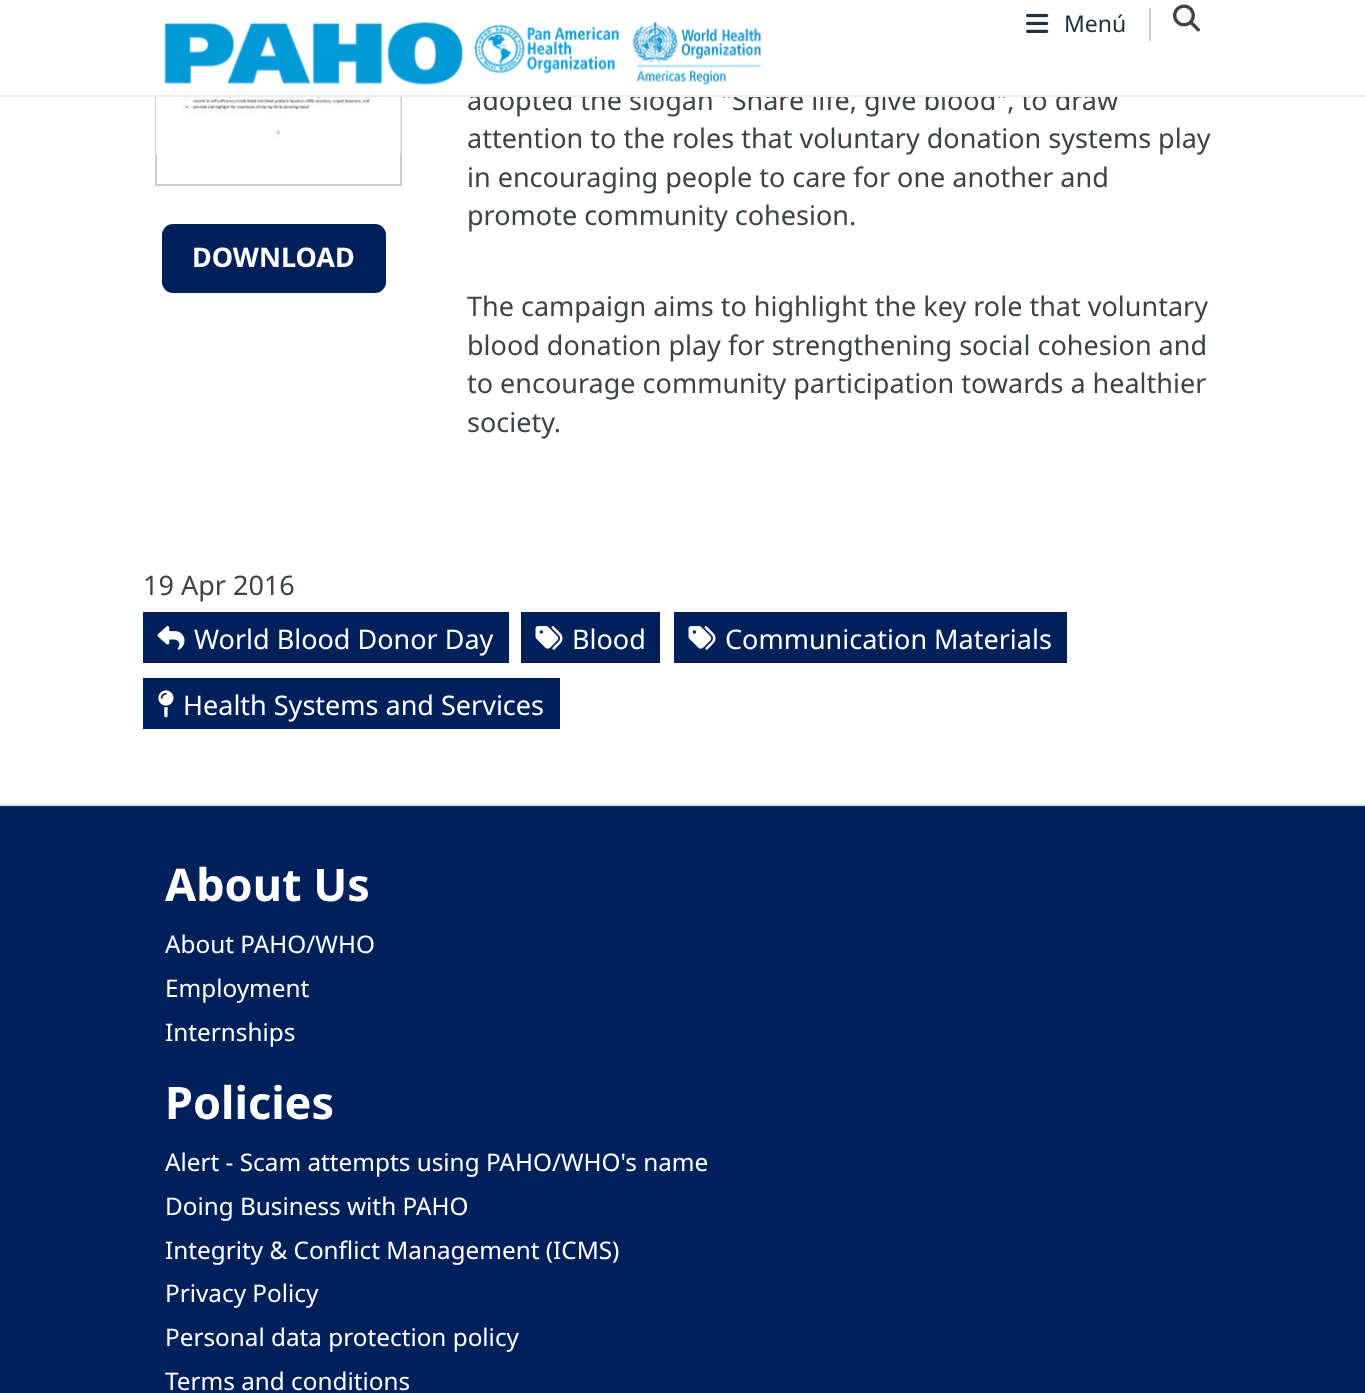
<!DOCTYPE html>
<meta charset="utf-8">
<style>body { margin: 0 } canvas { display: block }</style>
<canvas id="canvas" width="1365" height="1393"></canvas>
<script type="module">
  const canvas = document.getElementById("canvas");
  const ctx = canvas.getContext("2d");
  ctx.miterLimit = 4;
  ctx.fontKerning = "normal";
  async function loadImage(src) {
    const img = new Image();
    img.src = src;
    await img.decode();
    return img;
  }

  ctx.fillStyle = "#ffffff";
  ctx.fillRect(0, 0, 1365, 1393);
  ctx.strokeStyle = "#cccccc";
  ctx.lineWidth = 2;
  ctx.strokeRect(156, -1, 245, 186);
  ctx.font = "27px Noto Sans";
  ctx.fillStyle = "#3c4245";
  ctx.fillText("adopted the slogan \"Share life, give blood\", to draw", 467, 110);
  ctx.fillStyle = "#ffffff";
  ctx.fillRect(155, 0, 914, 95);
  ctx.fillStyle = "#eeeeee";
  ctx.fillRect(0, 95, 1365, 2);
  ctx.drawImage(await loadImage("img1.png"), 164, 21, 597, 64);
  ctx.fillStyle = "#cccccc";
  ctx.fillRect(1149, 8, 2, 33);
  ctx.drawImage(await loadImage("img2.png"), 1026, 13, 23, 20);
  ctx.font = "23px Noto Sans";
  ctx.fillStyle = "#20313b";
  ctx.fillText("Menú", 1064, 32);
  ctx.drawImage(await loadImage("img3.png"), 1173, 4, 27, 28);
  ctx.drawImage(await loadImage("img4.png"), 156, 97, 245, 58);
  ctx.fillStyle = "#00205c";
  ctx.beginPath();
  ctx.roundRect(162, 224, 224, 69, 11);
  ctx.fill();
  ctx.font = "bold 27px Noto Sans";
  ctx.fillStyle = "#ffffff";
  ctx.fillText("DOWNLOAD", 192, 267);
  ctx.font = "27px Noto Sans";
  ctx.fillStyle = "#3c4245";
  ctx.fillText("attention to the roles that voluntary donation systems play", 467, 148);
  ctx.fillText("in encouraging people to care for one another and", 467, 187);
  ctx.fillText("promote community cohesion.", 467, 225);
  ctx.fillText("The campaign aims to highlight the key role that voluntary", 467, 316);
  ctx.fillText("blood donation play for strengthening social cohesion and", 467, 355);
  ctx.fillText("to encourage community participation towards a healthier", 467, 393);
  ctx.fillText("society.", 467, 432);
  ctx.fillText("19 Apr 2016", 143, 595);
  ctx.fillStyle = "#00205c";
  ctx.fillRect(143, 612, 366, 51);
  ctx.drawImage(await loadImage("img5.png"), 157, 626, 28, 24);
  ctx.fillStyle = "#ffffff";
  ctx.fillText("World Blood Donor Day", 194, 649);
  ctx.fillStyle = "#00205c";
  ctx.fillRect(521, 612, 139, 51);
  ctx.drawImage(await loadImage("img6.png"), 535, 626, 28, 24);
  ctx.fillStyle = "#ffffff";
  ctx.fillText("Blood", 572, 649);
  ctx.fillStyle = "#00205c";
  ctx.fillRect(674, 612, 393, 51);
  ctx.drawImage(await loadImage("img6.png"), 688, 626, 28, 24);
  ctx.fillStyle = "#ffffff";
  ctx.fillText("Communication Materials", 725, 649);
  ctx.fillStyle = "#00205c";
  ctx.fillRect(143, 678, 417, 51);
  ctx.drawImage(await loadImage("img7.png"), 158, 690, 16, 28);
  ctx.fillStyle = "#ffffff";
  ctx.fillText("Health Systems and Services", 183, 715);
  ctx.fillStyle = "#00205c";
  ctx.fillRect(0, 806, 1365, 587);
  ctx.fillStyle = "#e5e5e5";
  ctx.fillRect(0, 804, 1365, 2);
  ctx.font = "bold 45px Noto Sans";
  ctx.fillStyle = "#ffffff";
  ctx.fillText("About Us", 165, 901);
  ctx.font = "24.3px Noto Sans";
  ctx.fillText("About PAHO/WHO", 165, 953);
  ctx.fillText("Employment", 165, 997);
  ctx.fillText("Internships", 165, 1041);
  ctx.font = "bold 45px Noto Sans";
  ctx.fillText("Policies", 165, 1119);
  ctx.font = "24.3px Noto Sans";
  ctx.fillText("Alert - Scam attempts using PAHO/WHO's name", 165, 1171);
  ctx.fillText("Doing Business with PAHO", 165, 1215);
  ctx.fillText("Integrity & Conflict Management (ICMS)", 165, 1259);
  ctx.fillText("Privacy Policy", 165, 1302);
  ctx.fillText("Personal data protection policy", 165, 1346);
  ctx.fillText("Terms and conditions", 165, 1390);
</script>
